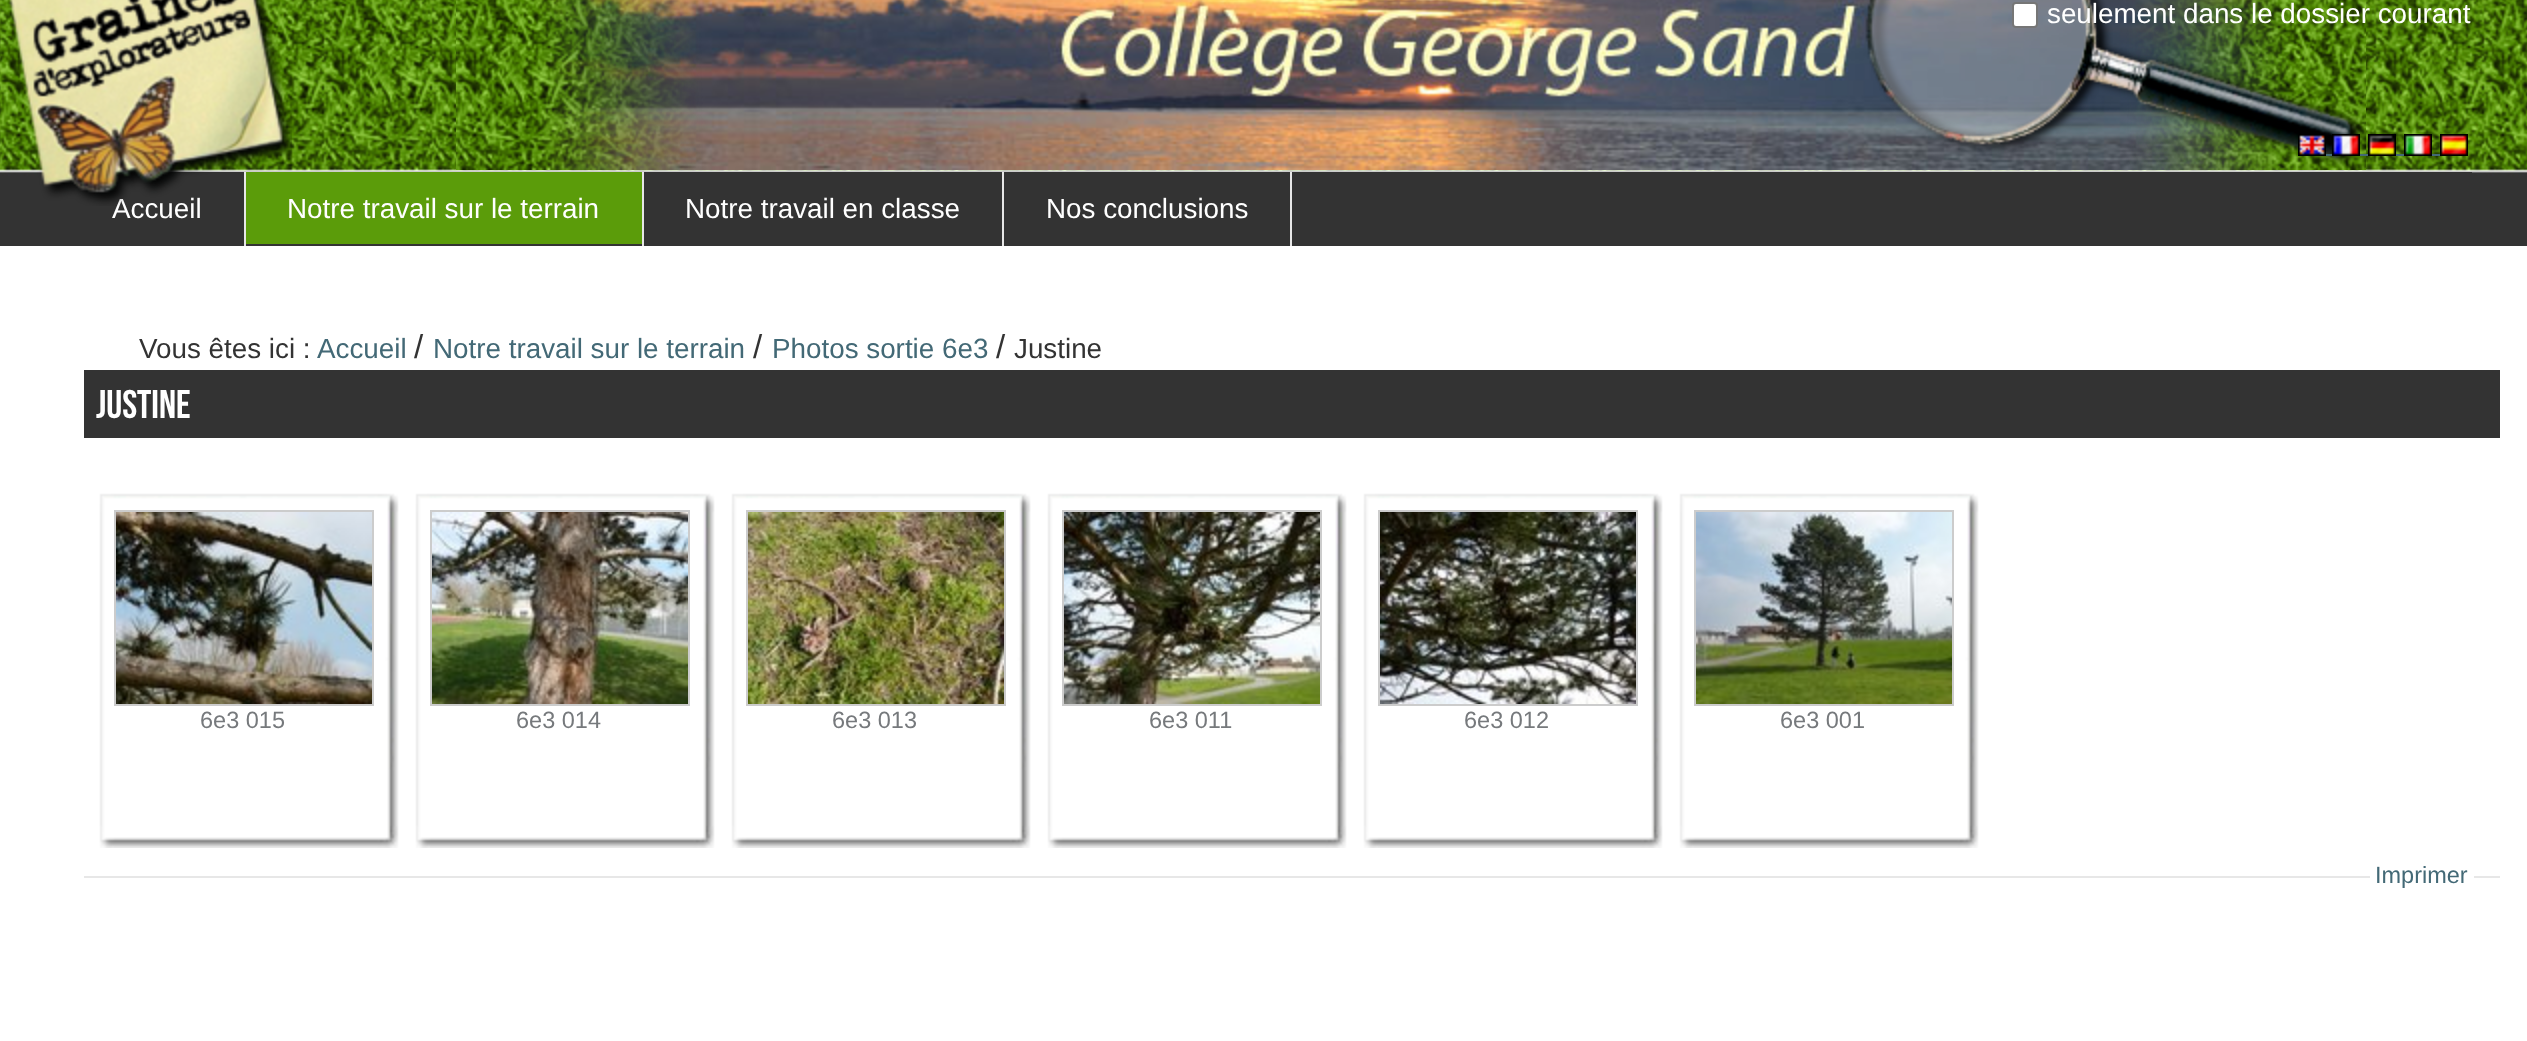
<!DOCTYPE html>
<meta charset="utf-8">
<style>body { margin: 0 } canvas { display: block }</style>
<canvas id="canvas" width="2527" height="1041"></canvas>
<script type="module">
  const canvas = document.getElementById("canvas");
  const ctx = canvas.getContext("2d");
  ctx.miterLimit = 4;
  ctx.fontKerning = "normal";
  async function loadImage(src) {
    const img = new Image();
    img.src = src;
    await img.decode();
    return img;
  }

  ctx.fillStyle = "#ffffff";
  ctx.fillRect(0, 0, 2527, 1041);
  ctx.drawImage(await loadImage("img1.png"), 0, 0, 2527, 246);
  ctx.fillStyle = "#333333";
  ctx.fillRect(56, 172, 2416, 4);
  ctx.fillStyle = "#e7e7e7";
  ctx.fillRect(244, 172, 2, 74);
  ctx.font = "27.8px Liberation Sans";
  ctx.fillStyle = "#ffffff";
  ctx.fillText("Accueil", 112, 218);
  ctx.fillStyle = "#5b9c0a";
  ctx.fillRect(246, 172, 396, 72);
  ctx.fillStyle = "#ffffff";
  ctx.fillText("Notre travail sur le terrain", 287, 218);
  ctx.drawImage(await loadImage("img2.png"), 7, 0, 285, 206);
  ctx.drawImage(await loadImage("img4.png"), 535, 0, 1759, 170);
  ctx.drawImage(await loadImage("img3.png"), 456, 0, 1910, 170);
  ctx.beginPath();
  ctx.roundRect(2013, 3, 24, 24, 3);
  ctx.fill();
  ctx.strokeStyle = "#767676";
  ctx.lineWidth = 2;
  ctx.stroke();
  ctx.fillText("seulement dans le dossier courant", 2047, 23);
  ctx.drawImage(await loadImage("img5.png"), 2298, 135, 28, 21);
  ctx.fillStyle = "#436976";
  ctx.fillRect(2326, 154, 6, 2);
  ctx.drawImage(await loadImage("img6.png"), 2332, 134, 28, 22);
  ctx.fillRect(2360, 154, 8, 2);
  ctx.drawImage(await loadImage("img7.png"), 2368, 134, 28, 22);
  ctx.fillRect(2396, 154, 8, 2);
  ctx.drawImage(await loadImage("img8.png"), 2404, 134, 28, 22);
  ctx.fillRect(2432, 154, 8, 2);
  ctx.drawImage(await loadImage("img9.png"), 2440, 134, 28, 22);
  ctx.fillStyle = "#e7e7e7";
  ctx.fillRect(642, 172, 2, 74);
  ctx.fillRect(1002, 172, 2, 74);
  ctx.fillStyle = "#ffffff";
  ctx.fillText("Notre travail en classe", 685, 218);
  ctx.fillStyle = "#e7e7e7";
  ctx.fillRect(1290, 172, 2, 74);
  ctx.fillStyle = "#ffffff";
  ctx.fillText("Nos conclusions", 1046, 218);
  ctx.fillStyle = "#333333";
  ctx.fillText("Vous êtes ici :", 139, 358);
  ctx.fillStyle = "#436976";
  ctx.fillText("Accueil", 317, 358);
  ctx.font = "33px Liberation Sans";
  ctx.fillStyle = "#333333";
  ctx.fillText("/", 414, 358);
  ctx.font = "27.8px Liberation Sans";
  ctx.fillStyle = "#436976";
  ctx.fillText("Notre travail sur le terrain", 433, 358);
  ctx.font = "33px Liberation Sans";
  ctx.fillStyle = "#333333";
  ctx.fillText("/", 753, 358);
  ctx.font = "27.8px Liberation Sans";
  ctx.fillStyle = "#436976";
  ctx.fillText("Photos sortie 6e3", 772, 358);
  ctx.font = "33px Liberation Sans";
  ctx.fillStyle = "#333333";
  ctx.fillText("/", 996, 358);
  ctx.font = "27.8px Liberation Sans";
  ctx.fillText("Justine", 1014, 358);
  ctx.fillRect(84, 370, 2416, 68);
  ctx.font = "40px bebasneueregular";
  ctx.fillStyle = "#ffffff";
  ctx.fillText("Justine", 96, 418);
  ctx.drawImage(await loadImage("img10.png"), 99, 493, 300, 355);
  ctx.strokeStyle = "#cccccc";
  ctx.strokeRect(115, 511, 258, 194);
  ctx.drawImage(await loadImage("img11.png"), 116, 512, 256, 192);
  ctx.font = "23.5px Liberation Sans";
  ctx.fillStyle = "#76797c";
  ctx.fillText("6e3 015", 200, 728);
  ctx.drawImage(await loadImage("img10.png"), 415, 493, 300, 355);
  ctx.strokeRect(431, 511, 258, 194);
  ctx.drawImage(await loadImage("img12.png"), 432, 512, 256, 192);
  ctx.fillText("6e3 014", 516, 728);
  ctx.drawImage(await loadImage("img10.png"), 731, 493, 300, 355);
  ctx.strokeRect(747, 511, 258, 194);
  ctx.drawImage(await loadImage("img13.png"), 748, 512, 256, 192);
  ctx.fillText("6e3 013", 832, 728);
  ctx.drawImage(await loadImage("img10.png"), 1047, 493, 300, 355);
  ctx.strokeRect(1063, 511, 258, 194);
  ctx.drawImage(await loadImage("img14.png"), 1064, 512, 256, 192);
  ctx.fillText("6e3 011", 1149, 728);
  ctx.drawImage(await loadImage("img10.png"), 1363, 493, 300, 355);
  ctx.strokeRect(1379, 511, 258, 194);
  ctx.drawImage(await loadImage("img15.png"), 1380, 512, 256, 192);
  ctx.fillText("6e3 012", 1464, 728);
  ctx.drawImage(await loadImage("img10.png"), 1679, 493, 300, 355);
  ctx.strokeRect(1695, 511, 258, 194);
  ctx.drawImage(await loadImage("img16.png"), 1696, 512, 256, 192);
  ctx.fillText("6e3 001", 1780, 728);
  ctx.fillStyle = "#e7e7e7";
  ctx.fillRect(84, 876, 2416, 2);
  ctx.fillStyle = "#ffffff";
  ctx.fillRect(2370, 876, 104, 2);
  ctx.fillStyle = "#436976";
  ctx.fillText("Imprimer", 2375, 883);
</script>
